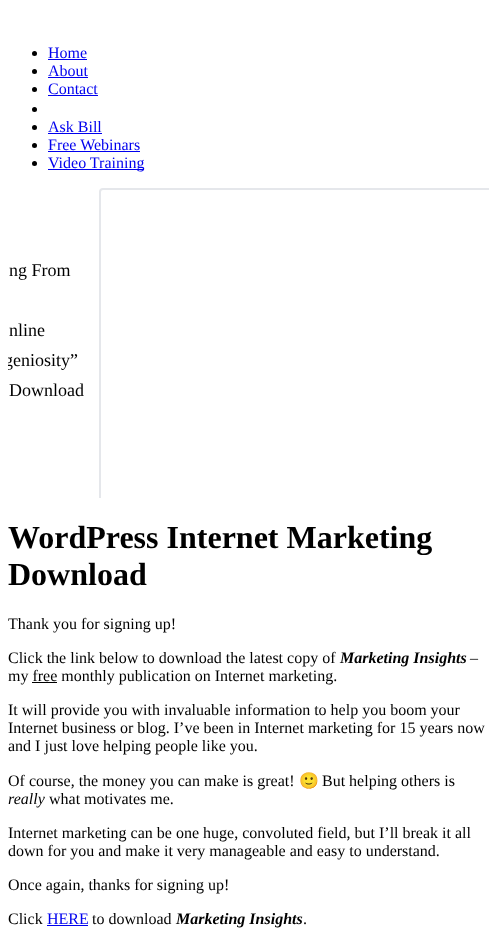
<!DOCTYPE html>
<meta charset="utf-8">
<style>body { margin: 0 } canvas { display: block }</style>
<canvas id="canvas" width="497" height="938"></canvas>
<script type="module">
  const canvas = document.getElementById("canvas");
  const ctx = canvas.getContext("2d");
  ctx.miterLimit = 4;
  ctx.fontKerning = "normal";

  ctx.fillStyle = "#ffffff";
  ctx.fillRect(0, 0, 497, 938);
  ctx.fillStyle = "#000000";
  ctx.beginPath();
  ctx.arc(34.5, 53.5, 2.5, 0, Math.PI * 2);
  ctx.fill();
  ctx.font = "16px Liberation Serif";
  ctx.fillStyle = "#0000ee";
  ctx.fillText("Home", 48, 58);
  ctx.fillRect(48, 59, 39, 1);
  ctx.fillStyle = "#000000";
  ctx.beginPath();
  ctx.arc(34.5, 71.5, 2.5, 0, Math.PI * 2);
  ctx.fill();
  ctx.fillStyle = "#0000ee";
  ctx.fillText("About", 48, 76);
  ctx.fillRect(48, 77, 40, 1);
  ctx.fillStyle = "#000000";
  ctx.beginPath();
  ctx.arc(34.5, 89.5, 2.5, 0, Math.PI * 2);
  ctx.fill();
  ctx.fillStyle = "#0000ee";
  ctx.fillText("Contact", 48, 94);
  ctx.fillRect(48, 95, 50, 1);
  ctx.fillStyle = "#000000";
  ctx.beginPath();
  ctx.arc(34.5, 109.5, 2.5, 0, Math.PI * 2);
  ctx.fill();
  ctx.beginPath();
  ctx.arc(34.5, 127.5, 2.5, 0, Math.PI * 2);
  ctx.fill();
  ctx.fillStyle = "#0000ee";
  ctx.fillText("Ask Bill", 48, 132);
  ctx.fillRect(48, 133, 54, 1);
  ctx.fillStyle = "#000000";
  ctx.beginPath();
  ctx.arc(34.5, 145.5, 2.5, 0, Math.PI * 2);
  ctx.fill();
  ctx.fillStyle = "#0000ee";
  ctx.fillText("Free Webinars", 48, 150);
  ctx.fillRect(48, 151, 92, 1);
  ctx.fillStyle = "#000000";
  ctx.beginPath();
  ctx.arc(34.5, 163.5, 2.5, 0, Math.PI * 2);
  ctx.fill();
  ctx.fillStyle = "#0000ee";
  ctx.fillRect(48, 169, 96, 1);
  ctx.fillText("Video Training", 48, 168);
  ctx.font = "18px Liberation Serif";
  ctx.fillStyle = "#000000";
  ctx.fillText("ng From", 9, 276);
  ctx.fillText("nline", 9, 336);
  ctx.save();
  ctx.beginPath();
  ctx.rect(8, 8, 481, 490);
  ctx.clip();
  ctx.fillText("geniosity”", 4, 366);
  ctx.restore();
  ctx.fillText("Download", 9, 396);
  ctx.save();
  ctx.beginPath();
  ctx.rect(8, 8, 481, 490);
  ctx.clip();
  ctx.beginPath();
  ctx.roundRect(100, 189, 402, 322, 3);
  ctx.strokeStyle = "#e5e7eb";
  ctx.lineWidth = 2;
  ctx.stroke();
  ctx.restore();
  ctx.font = "bold 32px Liberation Serif";
  ctx.fillText("WordPress Internet Marketing", 8, 548);
  ctx.fillText("Download", 8, 585);
  ctx.font = "16px Liberation Serif";
  ctx.fillText("Thank you for signing up!", 8, 629);
  ctx.fillText("Click the link below to download the latest copy of", 8, 663);
  ctx.font = "italic bold 16px Liberation Serif";
  ctx.fillText("Marketing Insights", 340, 663);
  ctx.font = "16px Liberation Serif";
  ctx.fillText("–", 470, 663);
  ctx.fillText("my free monthly publication on Internet marketing.", 8, 681);
  ctx.fillRect(32, 682, 25, 1);
  ctx.fillText("It will provide you with invaluable information to help you boom your", 8, 715);
  ctx.fillText("Internet business or blog. I’ve been in Internet marketing for 15 years now", 8, 733);
  ctx.fillText("and I just love helping people like you.", 8, 751);
  ctx.fillText("Of course, the money you can make is great!", 8, 786);
  ctx.font = "16px Noto Color Emoji";
  ctx.fillText("🙂", 299, 786);
  ctx.font = "16px Liberation Serif";
  ctx.fillText("But helping others is", 322, 786);
  ctx.font = "italic 16px Liberation Serif";
  ctx.fillText("really", 8, 804);
  ctx.font = "16px Liberation Serif";
  ctx.fillText("what motivates me.", 49, 804);
  ctx.fillText("Internet marketing can be one huge, convoluted field, but I’ll break it all", 8, 838);
  ctx.fillText("down for you and make it very manageable and easy to understand.", 8, 856);
  ctx.fillText("Once again, thanks for signing up!", 8, 890);
  ctx.fillText("Click", 8, 924);
  ctx.fillStyle = "#0000ee";
  ctx.fillText("HERE", 47, 924);
  ctx.fillRect(47, 925, 41, 1);
  ctx.fillStyle = "#000000";
  ctx.fillText("to download", 92, 924);
  ctx.font = "italic bold 16px Liberation Serif";
  ctx.fillText("Marketing Insights", 176, 924);
  ctx.font = "16px Liberation Serif";
  ctx.fillText(".", 303, 924);
</script>
